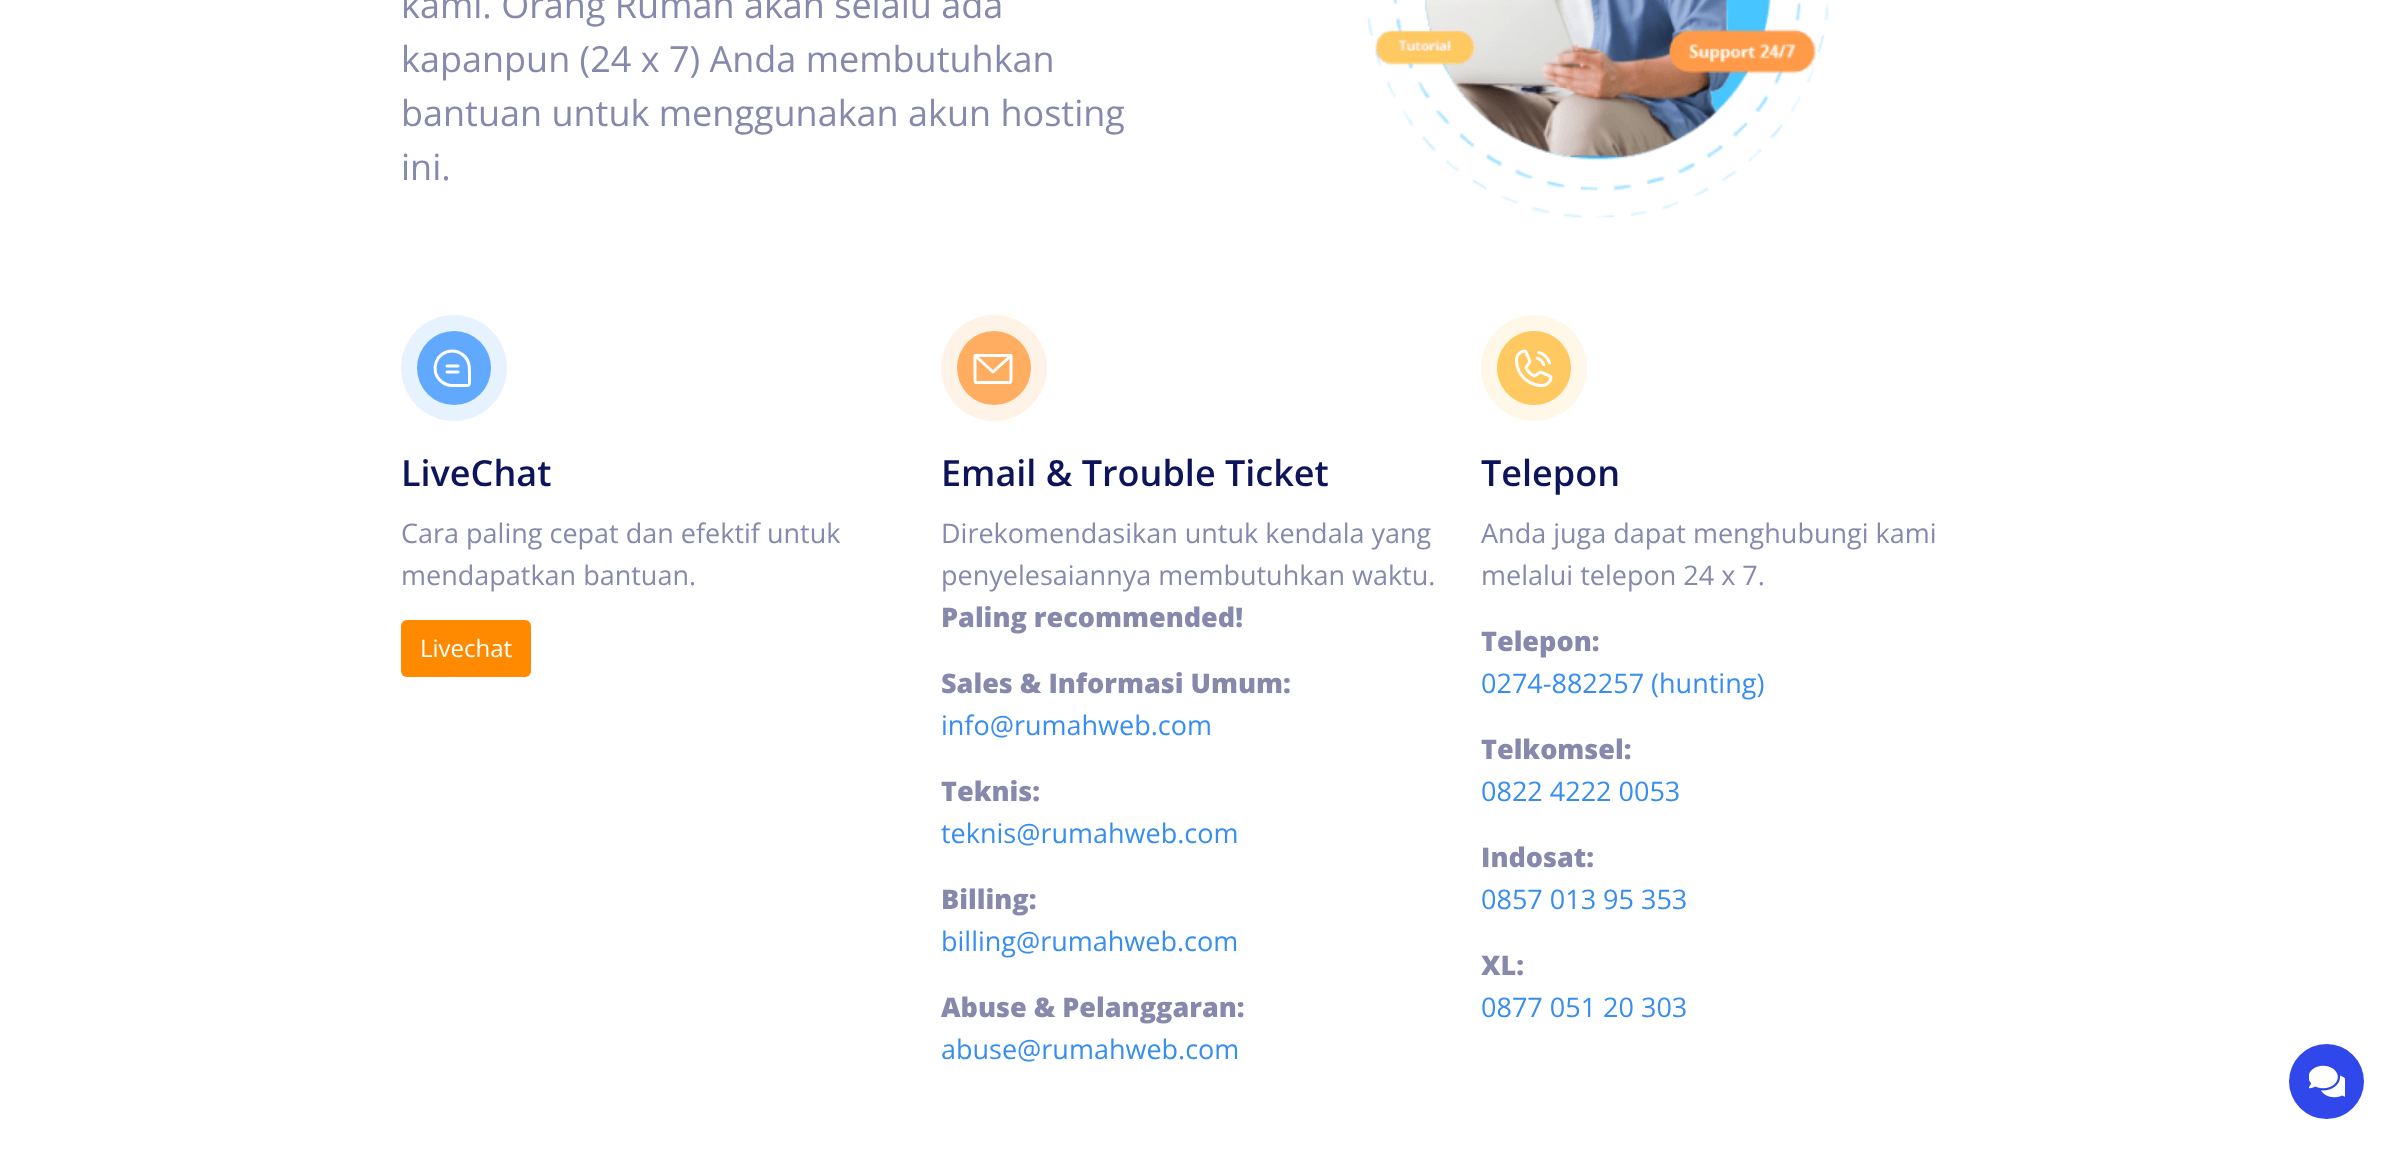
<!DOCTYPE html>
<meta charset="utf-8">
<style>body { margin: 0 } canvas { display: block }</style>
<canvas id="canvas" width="2384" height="1163"></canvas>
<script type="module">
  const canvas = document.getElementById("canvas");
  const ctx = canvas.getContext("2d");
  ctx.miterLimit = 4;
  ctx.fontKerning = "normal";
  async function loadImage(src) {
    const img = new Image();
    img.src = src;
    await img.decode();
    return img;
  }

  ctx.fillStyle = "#ffffff";
  ctx.fillRect(0, 0, 2384, 1163);
  ctx.font = "36px Open Sans";
  ctx.fillStyle = "#8689ac";
  ctx.fillText("kami. Orang Rumah akan selalu ada", 401, 18);
  ctx.fillText("kapanpun (24 x 7) Anda membutuhkan", 401, 72);
  ctx.fillText("bantuan untuk menggunakan akun hosting", 401, 126);
  ctx.fillText("ini.", 401, 180);
  ctx.drawImage(await loadImage("img1.png"), 1366, 0, 463, 218);
  ctx.fillStyle = "#61aaff";
  ctx.beginPath();
  ctx.arc(454, 368, 37, 0, Math.PI * 2);
  ctx.fill();
  ctx.fillStyle = "rgba(97, 170, 255, 0.15)";
  ctx.beginPath();
  ctx.arc(454, 368, 53, 0, Math.PI * 2);
  ctx.fill();
  ctx.beginPath();
  ctx.moveTo(452, 385.5);
  ctx.lineTo(465.5, 385.5);
  ctx.bezierCurveTo(469.5, 385.5, 469.5, 385.5, 469.5, 381.5);
  ctx.lineTo(469.5, 373.5);
  ctx.bezierCurveTo(469.5, 370.5, 469.5, 367.5, 469, 365);
  ctx.bezierCurveTo(467.5, 357, 460.5, 351, 452, 351);
  ctx.bezierCurveTo(436.5, 351, 428.5, 371, 441.5, 381.5);
  ctx.bezierCurveTo(444.5, 384, 448.5, 385.5, 452, 385.5);
  ctx.closePath();
  ctx.moveTo(458, 366);
  ctx.lineTo(447, 366);
  ctx.moveTo(458, 372);
  ctx.lineTo(447, 372);
  ctx.strokeStyle = "#ffffff";
  ctx.lineWidth = 3;
  ctx.lineCap = "round";
  ctx.lineJoin = "round";
  ctx.stroke();
  ctx.font = "600 36px Open Sans";
  ctx.fillStyle = "#0d145a";
  ctx.fillText("LiveChat", 401, 486);
  ctx.font = "27px Open Sans";
  ctx.fillStyle = "#8689ac";
  ctx.fillText("Cara paling cepat dan efektif untuk", 401, 543);
  ctx.fillText("mendapatkan bantuan.", 401, 585);
  ctx.fillStyle = "#ff8a00";
  ctx.beginPath();
  ctx.roundRect(401, 620, 130, 57, 6);
  ctx.fill();
  ctx.font = "24px Open Sans";
  ctx.fillStyle = "#ffffff";
  ctx.fillText("Livechat", 420, 657);
  ctx.fillStyle = "#fff3e7";
  ctx.beginPath();
  ctx.arc(994, 368, 53, 0, Math.PI * 2);
  ctx.fill();
  ctx.fillStyle = "#ffad61";
  ctx.beginPath();
  ctx.arc(994, 368, 37, 0, Math.PI * 2);
  ctx.fill();
  ctx.beginPath();
  ctx.moveTo(975, 355.5);
  ctx.lineTo(1011, 355.5);
  ctx.lineTo(1011, 377);
  ctx.bezierCurveTo(1011, 384, 1011.5, 382.5, 1004, 382.5);
  ctx.lineTo(982, 382.5);
  ctx.bezierCurveTo(974.5, 382.5, 975, 384, 975, 377);
  ctx.closePath();
  ctx.moveTo(1011, 355.5);
  ctx.lineTo(993, 372);
  ctx.lineTo(975, 355.5);
  ctx.stroke();
  ctx.font = "600 36px Open Sans";
  ctx.fillStyle = "#0d145a";
  ctx.fillText("Email & Trouble Ticket", 941, 486);
  ctx.font = "27px Open Sans";
  ctx.fillStyle = "#8689ac";
  ctx.fillText("Direkomendasikan untuk kendala yang", 941, 543);
  ctx.fillText("penyelesaiannya membutuhkan waktu.", 941, 585);
  ctx.font = "800 27px Open Sans";
  ctx.fillText("Paling recommended!", 941, 627);
  ctx.fillText("Sales & Informasi Umum:", 941, 693);
  ctx.font = "27px Open Sans";
  ctx.fillStyle = "#378df0";
  ctx.fillText("info@rumahweb.com", 941, 735);
  ctx.font = "800 27px Open Sans";
  ctx.fillStyle = "#8689ac";
  ctx.fillText("Teknis:", 941, 801);
  ctx.font = "27px Open Sans";
  ctx.fillStyle = "#378df0";
  ctx.fillText("teknis@rumahweb.com", 941, 843);
  ctx.font = "800 27px Open Sans";
  ctx.fillStyle = "#8689ac";
  ctx.fillText("Billing:", 941, 909);
  ctx.font = "27px Open Sans";
  ctx.fillStyle = "#378df0";
  ctx.fillText("billing@rumahweb.com", 941, 951);
  ctx.font = "800 27px Open Sans";
  ctx.fillStyle = "#8689ac";
  ctx.fillText("Abuse & Pelanggaran:", 941, 1017);
  ctx.font = "27px Open Sans";
  ctx.fillStyle = "#378df0";
  ctx.fillText("abuse@rumahweb.com", 941, 1059);
  ctx.drawImage(await loadImage("img2.png"), 1481, 315, 106, 106);
  ctx.font = "600 36px Open Sans";
  ctx.fillStyle = "#0d145a";
  ctx.fillText("Telepon", 1481, 486);
  ctx.font = "27px Open Sans";
  ctx.fillStyle = "#8689ac";
  ctx.fillText("Anda juga dapat menghubungi kami", 1481, 543);
  ctx.fillText("melalui telepon 24 x 7.", 1481, 585);
  ctx.font = "800 27px Open Sans";
  ctx.fillText("Telepon:", 1481, 651);
  ctx.font = "27px Open Sans";
  ctx.fillStyle = "#378df0";
  ctx.fillText("0274-882257 (hunting)", 1481, 693);
  ctx.font = "800 27px Open Sans";
  ctx.fillStyle = "#8689ac";
  ctx.fillText("Telkomsel:", 1481, 759);
  ctx.font = "27px Open Sans";
  ctx.fillStyle = "#378df0";
  ctx.fillText("0822 4222 0053", 1481, 801);
  ctx.font = "800 27px Open Sans";
  ctx.fillStyle = "#8689ac";
  ctx.fillText("Indosat:", 1481, 867);
  ctx.font = "27px Open Sans";
  ctx.fillStyle = "#378df0";
  ctx.fillText("0857 013 95 353", 1481, 909);
  ctx.font = "800 27px Open Sans";
  ctx.fillStyle = "#8689ac";
  ctx.fillText("XL:", 1481, 975);
  ctx.font = "27px Open Sans";
  ctx.fillStyle = "#378df0";
  ctx.fillText("0877 051 20 303", 1481, 1017);
  ctx.fillStyle = "#3047ec";
  ctx.beginPath();
  ctx.arc(2326.5, 1081.5, 37.5, 0, Math.PI * 2);
  ctx.fill();
  ctx.drawImage(await loadImage("img3.png"), 2309, 1065, 36, 33);
</script>
